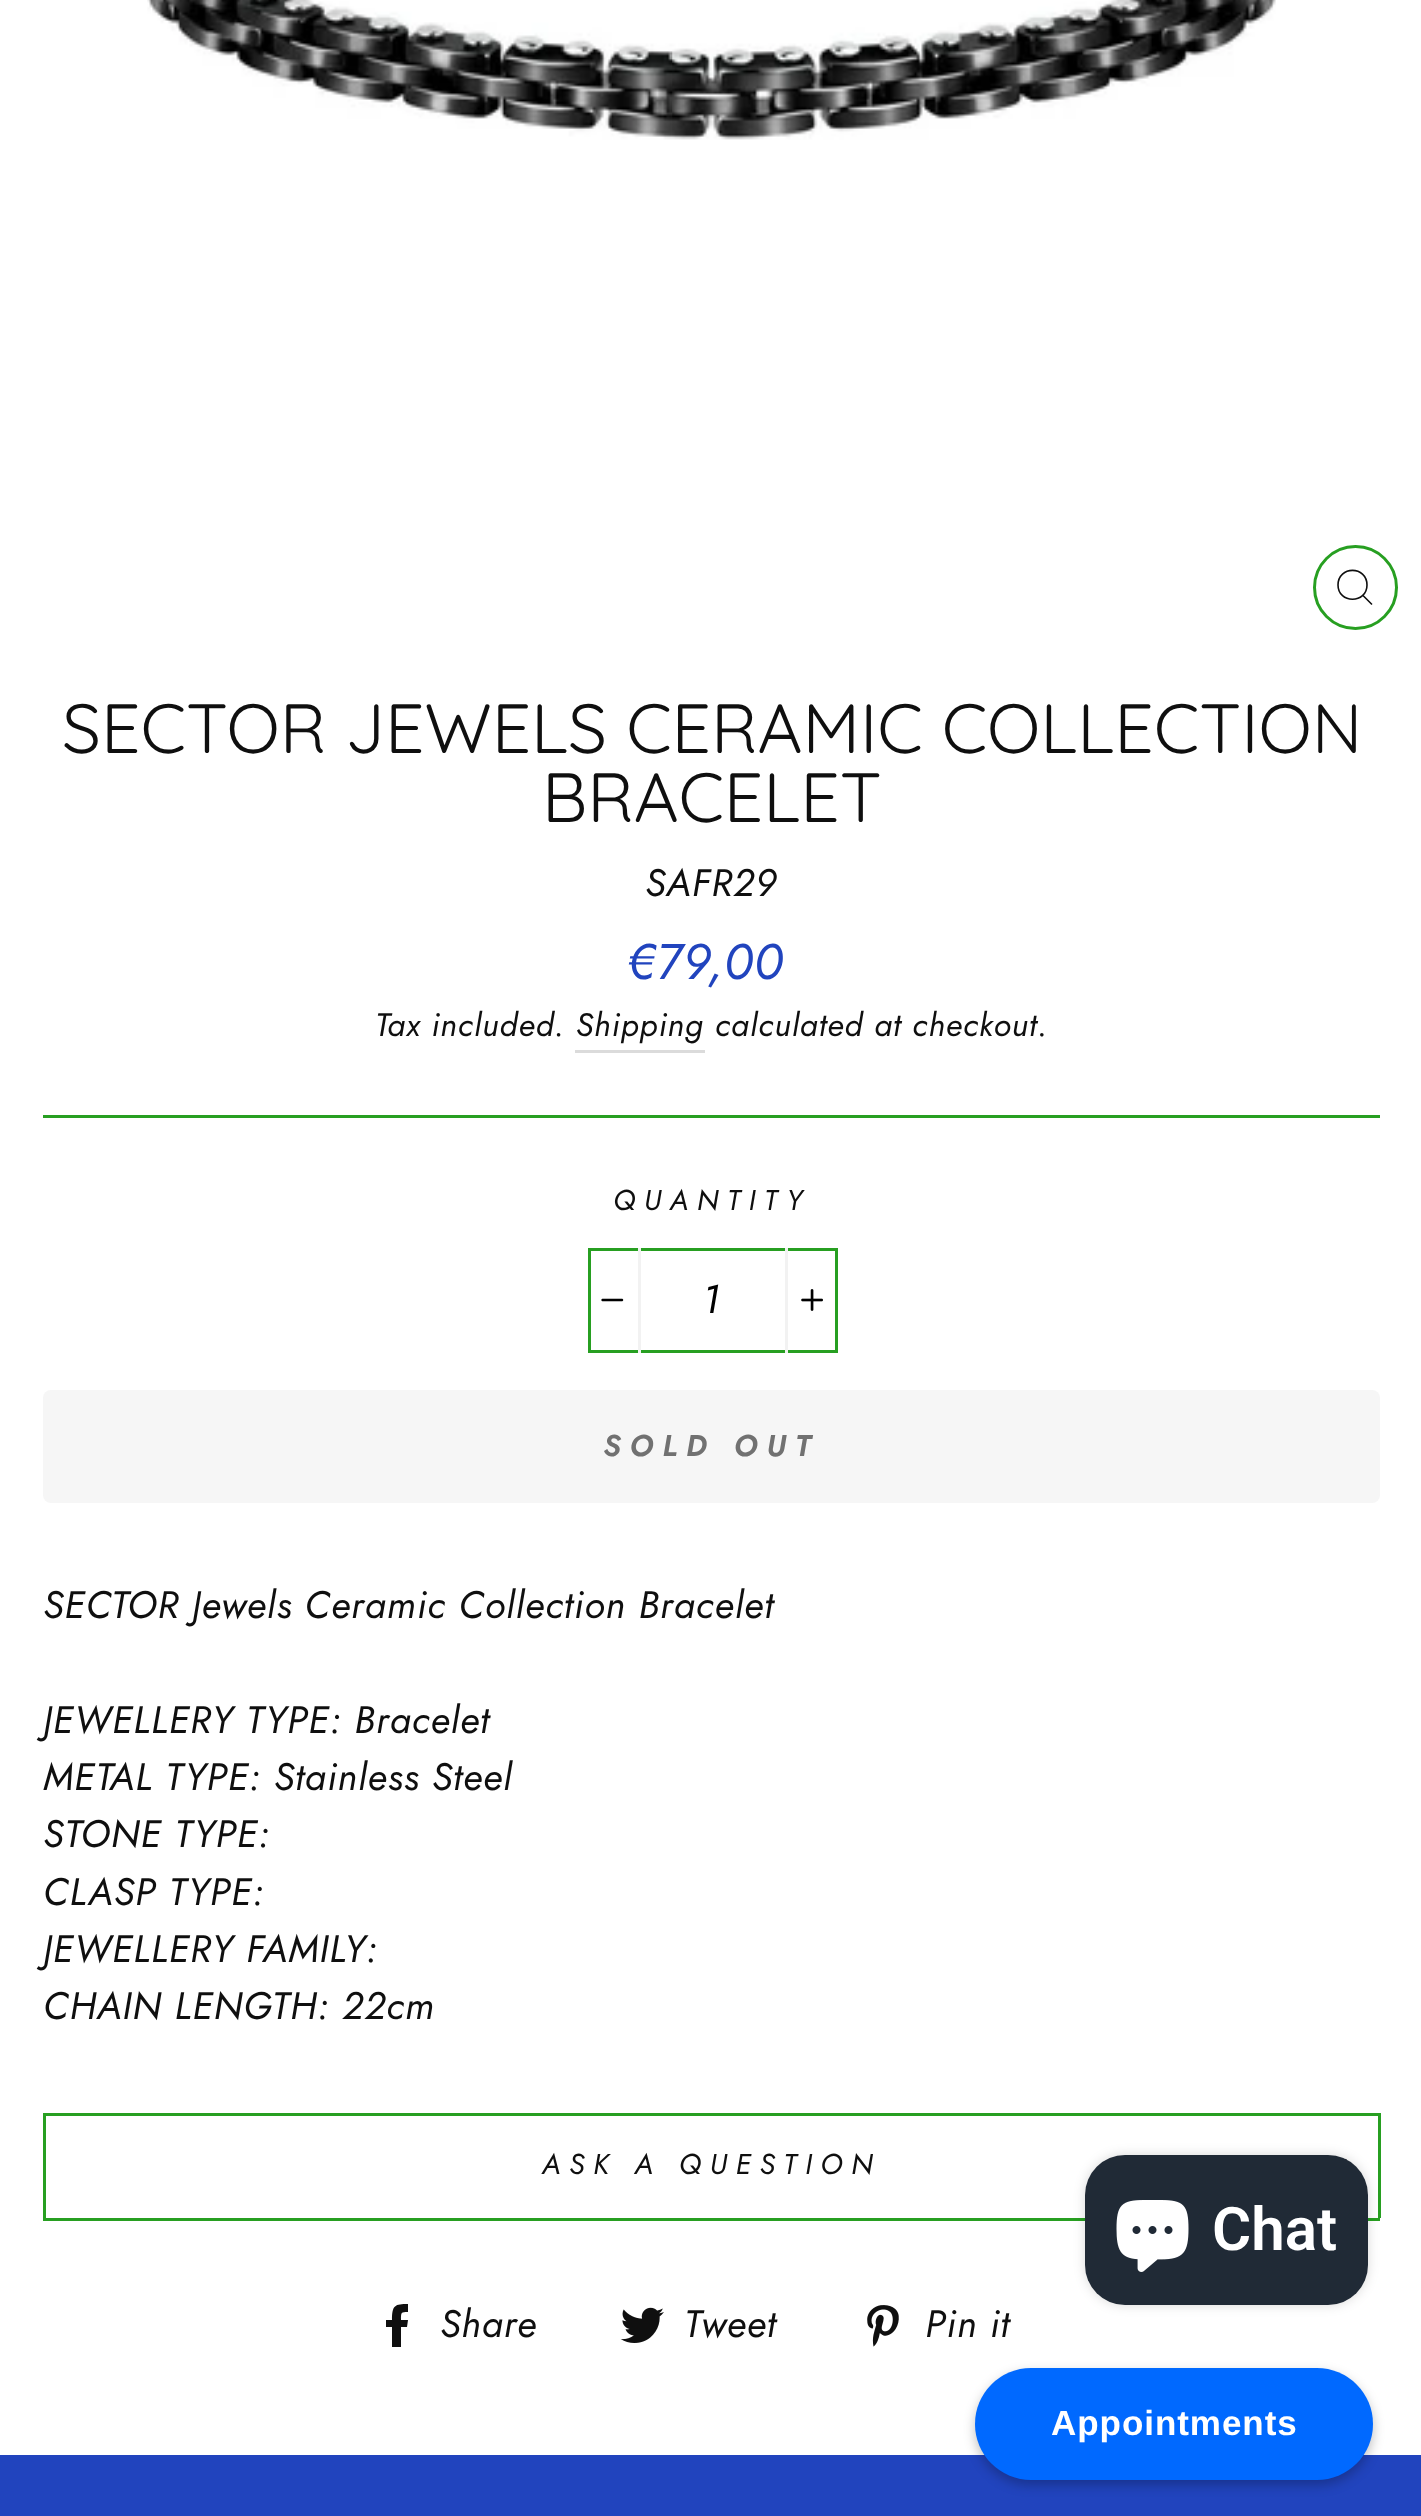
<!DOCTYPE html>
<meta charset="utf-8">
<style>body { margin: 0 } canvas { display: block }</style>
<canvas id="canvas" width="1421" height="2516"></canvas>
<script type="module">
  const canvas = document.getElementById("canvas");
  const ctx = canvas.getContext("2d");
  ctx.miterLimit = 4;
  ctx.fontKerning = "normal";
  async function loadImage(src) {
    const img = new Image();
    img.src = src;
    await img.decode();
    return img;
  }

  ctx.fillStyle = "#ffffff";
  ctx.fillRect(0, 0, 1421, 2516);
  ctx.drawImage(await loadImage("img1.png"), 147, 0, 1129, 140);
  ctx.beginPath();
  ctx.arc(1355.5, 587.5, 41, 0, Math.PI * 2);
  ctx.strokeStyle = "#279f21";
  ctx.lineWidth = 3;
  ctx.stroke();
  ctx.beginPath();
  ctx.moveTo(1367, 585);
  ctx.bezierCurveTo(1367, 604, 1338, 604, 1338, 585);
  ctx.bezierCurveTo(1338, 565.5, 1367, 565.5, 1367, 585);
  ctx.closePath();
  ctx.moveTo(1372, 604.5);
  ctx.lineTo(1363, 595.5);
  ctx.strokeStyle = "#0f0f0f";
  ctx.lineWidth = 1.6;
  ctx.stroke();
  ctx.font = "300 69.5px Quicksand";
  ctx.fillStyle = "#0f0f0f";
  ctx.fillText("SECTOR JEWELS CERAMIC COLLECTION", 62, 753);
  ctx.fillText("BRACELET", 542, 822);
  ctx.letterSpacing = "0.95px";
  ctx.font = "italic 38.25px Jost";
  ctx.fillText("SAFR29", 645, 896);
  ctx.font = "italic 50px Jost";
  ctx.fillStyle = "#2144be";
  ctx.fillText("€79,00", 627, 979);
  ctx.font = "italic 32.5px Jost";
  ctx.fillStyle = "#0f0f0f";
  ctx.fillText("Tax included. Shipping", 375, 1036);
  ctx.fillText("calculated at checkout.", 715, 1036);
  ctx.fillStyle = "#dbdbdb";
  ctx.fillRect(575, 1050, 130, 3);
  ctx.fillStyle = "#279f21";
  ctx.fillRect(43, 1115, 1337, 3);
  ctx.letterSpacing = "8.6px";
  ctx.font = "italic 28.75px Jost";
  ctx.fillStyle = "#0f0f0f";
  ctx.fillText("QUANTITY", 613, 1210);
  ctx.strokeStyle = "#279f21";
  ctx.lineWidth = 3;
  ctx.strokeRect(589.5, 1249.5, 247, 102);
  ctx.fillStyle = "#f2f2f2";
  ctx.fillRect(638, 1248, 3, 105);
  ctx.drawImage(await loadImage("img2.png"), 601, 1298, 23, 4);
  ctx.letterSpacing = "1px";
  ctx.font = "italic 40px Jost";
  ctx.fillStyle = "#000000";
  ctx.fillText("1", 702, 1313);
  ctx.fillStyle = "#f2f2f2";
  ctx.fillRect(785, 1248, 3, 105);
  ctx.drawImage(await loadImage("img3.png"), 801, 1289, 22, 22);
  ctx.fillStyle = "#f6f6f6";
  ctx.beginPath();
  ctx.roundRect(43, 1390, 1337, 113, 8);
  ctx.fill();
  ctx.letterSpacing = "9px";
  ctx.font = "italic 600 30px Jost";
  ctx.fillStyle = "#717171";
  ctx.fillText("SOLD OUT", 603, 1456);
  ctx.letterSpacing = "0.95px";
  ctx.font = "italic 38.25px Jost";
  ctx.fillStyle = "#0f0f0f";
  ctx.fillText("SECTOR Jewels Ceramic Collection Bracelet", 43, 1618);
  ctx.fillText("JEWELLERY TYPE: Bracelet", 43, 1733);
  ctx.fillText("METAL TYPE: Stainless Steel", 43, 1790);
  ctx.fillText("STONE TYPE:", 43, 1847);
  ctx.fillText("CLASP TYPE:", 43, 1905);
  ctx.fillText("JEWELLERY FAMILY:", 43, 1962);
  ctx.fillText("CHAIN LENGTH: 22cm", 43, 2019);
  ctx.fillStyle = "#279f21";
  ctx.fillRect(43, 2218, 1337, 3);
  ctx.fillRect(43, 2113, 1337, 3);
  ctx.fillRect(1378, 2113, 3, 105);
  ctx.fillRect(43, 2113, 3, 105);
  ctx.letterSpacing = "8.6px";
  ctx.font = "italic 28.75px Jost";
  ctx.fillStyle = "#0f0f0f";
  ctx.fillText("ASK A QUESTION", 542, 2174);
  ctx.beginPath();
  ctx.moveTo(1324, 2159.5);
  ctx.lineTo(1335.5, 2170.5);
  ctx.lineTo(1346.5, 2159.5);
  ctx.strokeStyle = "#0f0f0f";
  ctx.lineWidth = 1.8;
  ctx.stroke();
  ctx.beginPath();
  ctx.moveTo(401, 2347);
  ctx.lineTo(401, 2327);
  ctx.lineTo(407, 2327);
  ctx.lineTo(408, 2320);
  ctx.lineTo(401, 2320);
  ctx.bezierCurveTo(401, 2312, 401, 2312, 408, 2312);
  ctx.lineTo(408, 2304);
  ctx.bezierCurveTo(395, 2304, 392, 2305, 392, 2320);
  ctx.lineTo(386, 2320);
  ctx.lineTo(386, 2327);
  ctx.lineTo(392, 2327);
  ctx.lineTo(392, 2347);
  ctx.closePath();
  ctx.fill();
  ctx.letterSpacing = "0.95px";
  ctx.font = "italic 38.25px Jost";
  ctx.fillText("Share", 440, 2337);
  ctx.drawImage(await loadImage("img4.png"), 620, 2307, 44, 36);
  ctx.fillText("Tweet", 684, 2337);
  ctx.drawImage(await loadImage("img5.png"), 867, 2305, 32, 42);
  ctx.fillText("Pin it", 925, 2337);
  ctx.fillStyle = "#2144be";
  ctx.fillRect(0, 2455, 1421, 61);
  ctx.fillStyle = "rgba(0, 0, 0, 0.15)";
  ctx.filter = "blur(6px)";
  ctx.beginPath();
  ctx.roundRect(1085, 2155, 283, 150, 40);
  ctx.fill();
  ctx.filter = "none";
  ctx.fillStyle = "#202a36";
  ctx.beginPath();
  ctx.roundRect(1085, 2155, 283, 150, 40);
  ctx.fill();
  ctx.drawImage(await loadImage("img6.png"), 1116, 2200, 73, 72);
  ctx.letterSpacing = "0px";
  ctx.font = "600 60px Roboto";
  ctx.fillStyle = "#ffffff";
  ctx.fillText("Chat", 1212, 2250);
  ctx.fillStyle = "rgba(0, 0, 0, 0.25)";
  ctx.filter = "blur(6px)";
  ctx.beginPath();
  ctx.roundRect(975, 2373, 398, 112, 56);
  ctx.fill();
  ctx.filter = "none";
  ctx.fillStyle = "#0069ff";
  ctx.beginPath();
  ctx.roundRect(975, 2368, 398, 112, 56);
  ctx.fill();
  ctx.letterSpacing = "0.95px";
  ctx.font = "bold 35px Liberation Sans";
  ctx.fillStyle = "#ffffff";
  ctx.fillText("Appointments", 1051, 2435);
</script>
